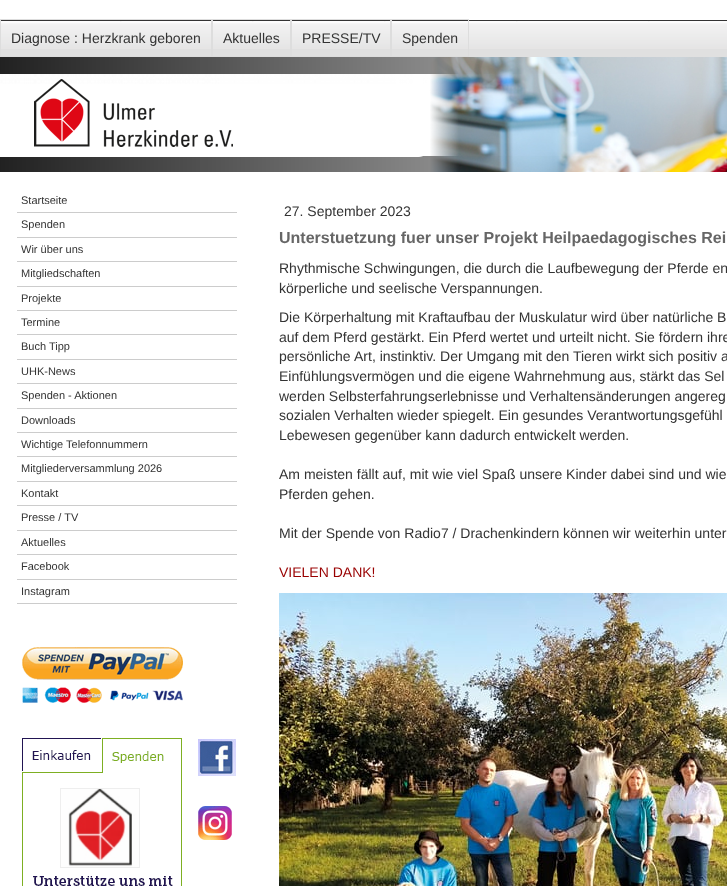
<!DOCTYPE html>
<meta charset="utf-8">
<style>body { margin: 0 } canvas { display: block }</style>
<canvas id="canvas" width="727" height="886"></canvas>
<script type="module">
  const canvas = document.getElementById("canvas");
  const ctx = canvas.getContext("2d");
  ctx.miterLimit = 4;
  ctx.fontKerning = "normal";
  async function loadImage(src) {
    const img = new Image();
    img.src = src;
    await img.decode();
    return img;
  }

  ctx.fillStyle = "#ffffff";
  ctx.fillRect(0, 0, 727, 886);
  ctx.fillStyle = "#e0e0e0";
  ctx.fillRect(1, 49, 726, 8);
  ctx.drawImage(await loadImage("img1.png"), 1, 21, 726, 28);
  ctx.fillStyle = "#333333";
  ctx.fillRect(0, 20, 727, 1);
  ctx.strokeStyle = "#dddddd";
  ctx.strokeRect(0.5, 19.5, 211, 37);
  ctx.font = "14px Liberation Sans";
  ctx.fillText("Diagnose : Herzkrank geboren", 11, 43);
  ctx.strokeRect(212.5, 19.5, 78, 37);
  ctx.fillText("Aktuelles", 223, 43);
  ctx.strokeRect(291.5, 19.5, 99, 37);
  ctx.fillText("PRESSE/TV", 302, 43);
  ctx.strokeRect(391.5, 19.5, 77, 37);
  ctx.fillText("Spenden", 402, 43);
  ctx.drawImage(await loadImage("img2.png"), 0, 57, 727, 115);
  ctx.fillStyle = "#cccccc";
  ctx.fillRect(17, 212, 220, 1);
  ctx.font = "11px Liberation Sans";
  ctx.fillStyle = "#333333";
  ctx.fillText("Startseite", 21, 204);
  ctx.fillStyle = "#cccccc";
  ctx.fillRect(17, 237, 220, 1);
  ctx.fillStyle = "#333333";
  ctx.fillText("Spenden", 21, 228);
  ctx.fillStyle = "#cccccc";
  ctx.fillRect(17, 261, 220, 1);
  ctx.fillStyle = "#333333";
  ctx.fillText("Wir über uns", 21, 253);
  ctx.fillStyle = "#cccccc";
  ctx.fillRect(17, 286, 220, 1);
  ctx.fillStyle = "#333333";
  ctx.fillText("Mitgliedschaften", 21, 277);
  ctx.fillStyle = "#cccccc";
  ctx.fillRect(17, 310, 220, 1);
  ctx.fillStyle = "#333333";
  ctx.fillText("Projekte", 21, 302);
  ctx.fillStyle = "#cccccc";
  ctx.fillRect(17, 334, 220, 1);
  ctx.fillStyle = "#333333";
  ctx.fillText("Termine", 21, 326);
  ctx.fillStyle = "#cccccc";
  ctx.fillRect(17, 359, 220, 1);
  ctx.fillStyle = "#333333";
  ctx.fillText("Buch Tipp", 21, 350);
  ctx.fillStyle = "#cccccc";
  ctx.fillRect(17, 383, 220, 1);
  ctx.fillStyle = "#333333";
  ctx.fillText("UHK-News", 21, 375);
  ctx.fillStyle = "#cccccc";
  ctx.fillRect(17, 408, 220, 1);
  ctx.fillStyle = "#333333";
  ctx.fillText("Spenden - Aktionen", 21, 399);
  ctx.fillStyle = "#cccccc";
  ctx.fillRect(17, 432, 220, 1);
  ctx.fillStyle = "#333333";
  ctx.fillText("Downloads", 21, 424);
  ctx.fillStyle = "#cccccc";
  ctx.fillRect(17, 456, 220, 1);
  ctx.fillStyle = "#333333";
  ctx.fillText("Wichtige Telefonnummern", 21, 448);
  ctx.fillStyle = "#cccccc";
  ctx.fillRect(17, 481, 220, 1);
  ctx.fillStyle = "#333333";
  ctx.fillText("Mitgliederversammlung 2026", 21, 472);
  ctx.fillStyle = "#cccccc";
  ctx.fillRect(17, 505, 220, 1);
  ctx.fillStyle = "#333333";
  ctx.fillText("Kontakt", 21, 497);
  ctx.fillStyle = "#cccccc";
  ctx.fillRect(17, 530, 220, 1);
  ctx.fillStyle = "#333333";
  ctx.fillText("Presse / TV", 21, 521);
  ctx.fillStyle = "#cccccc";
  ctx.fillRect(17, 554, 220, 1);
  ctx.fillStyle = "#333333";
  ctx.fillText("Aktuelles", 21, 546);
  ctx.fillStyle = "#cccccc";
  ctx.fillRect(17, 579, 220, 1);
  ctx.fillStyle = "#333333";
  ctx.fillText("Facebook", 21, 570);
  ctx.fillStyle = "#cccccc";
  ctx.fillRect(17, 603, 220, 1);
  ctx.fillStyle = "#333333";
  ctx.fillText("Instagram", 21, 595);
  ctx.drawImage(await loadImage("img3.png"), 22, 647, 161, 57);
  ctx.drawImage(await loadImage("img4.png"), 22, 738, 160, 148);
  ctx.drawImage(await loadImage("img5.png"), 198, 739, 38, 37);
  ctx.drawImage(await loadImage("img6.png"), 198, 806, 34, 34);
  ctx.font = "14px Liberation Sans";
  ctx.fillText("27. September 2023", 284, 216);
  ctx.font = "bold 16px Liberation Sans";
  ctx.fillStyle = "#666666";
  ctx.fillText("Unterstuetzung fuer unser Projekt Heilpaedagogisches Rei", 279, 243);
  ctx.font = "14px Liberation Sans";
  ctx.fillStyle = "#333333";
  ctx.fillText("Rhythmische Schwingungen, die durch die Laufbewegung der Pferde en", 279, 273);
  ctx.fillText("körperliche und seelische Verspannungen.", 279, 293);
  ctx.fillText("Die Körperhaltung mit Kraftaufbau der Muskulatur wird über natürliche B", 279, 322);
  ctx.fillText("auf dem Pferd gestärkt. Ein Pferd wertet und urteilt nicht. Sie fördern ihre", 279, 342);
  ctx.fillText("persönliche", 279, 361);
  ctx.fillText("Art, instinktiv. Der Umgang mit den Tieren wirkt sich positiv a", 354, 361);
  ctx.fillText("Einfühlungsvermögen und die eigene Wahrnehmung aus, stärkt das Sel", 279, 381);
  ctx.fillText("werden Selbsterfahrungserlebnisse und Verhaltensänderungen angereg", 279, 401);
  ctx.fillText("sozialen Verhalten wieder spiegelt. Ein gesundes Verantwortungsgefühl", 279, 420);
  ctx.fillText("Lebewesen gegenüber kann dadurch entwickelt werden.", 279, 440);
  ctx.fillText("Am meisten fällt auf, mit wie viel Spaß unsere Kinder dabei sind und wie", 279, 479);
  ctx.fillText("Pferden gehen.", 279, 499);
  ctx.fillText("Mit der Spende von Radio7 / Drachenkindern können wir weiterhin unter", 279, 538);
  ctx.fillStyle = "#990000";
  ctx.fillText("VIELEN DANK!", 279, 577);
  ctx.drawImage(await loadImage("img7.png"), 279, 593, 448, 293);
</script>
